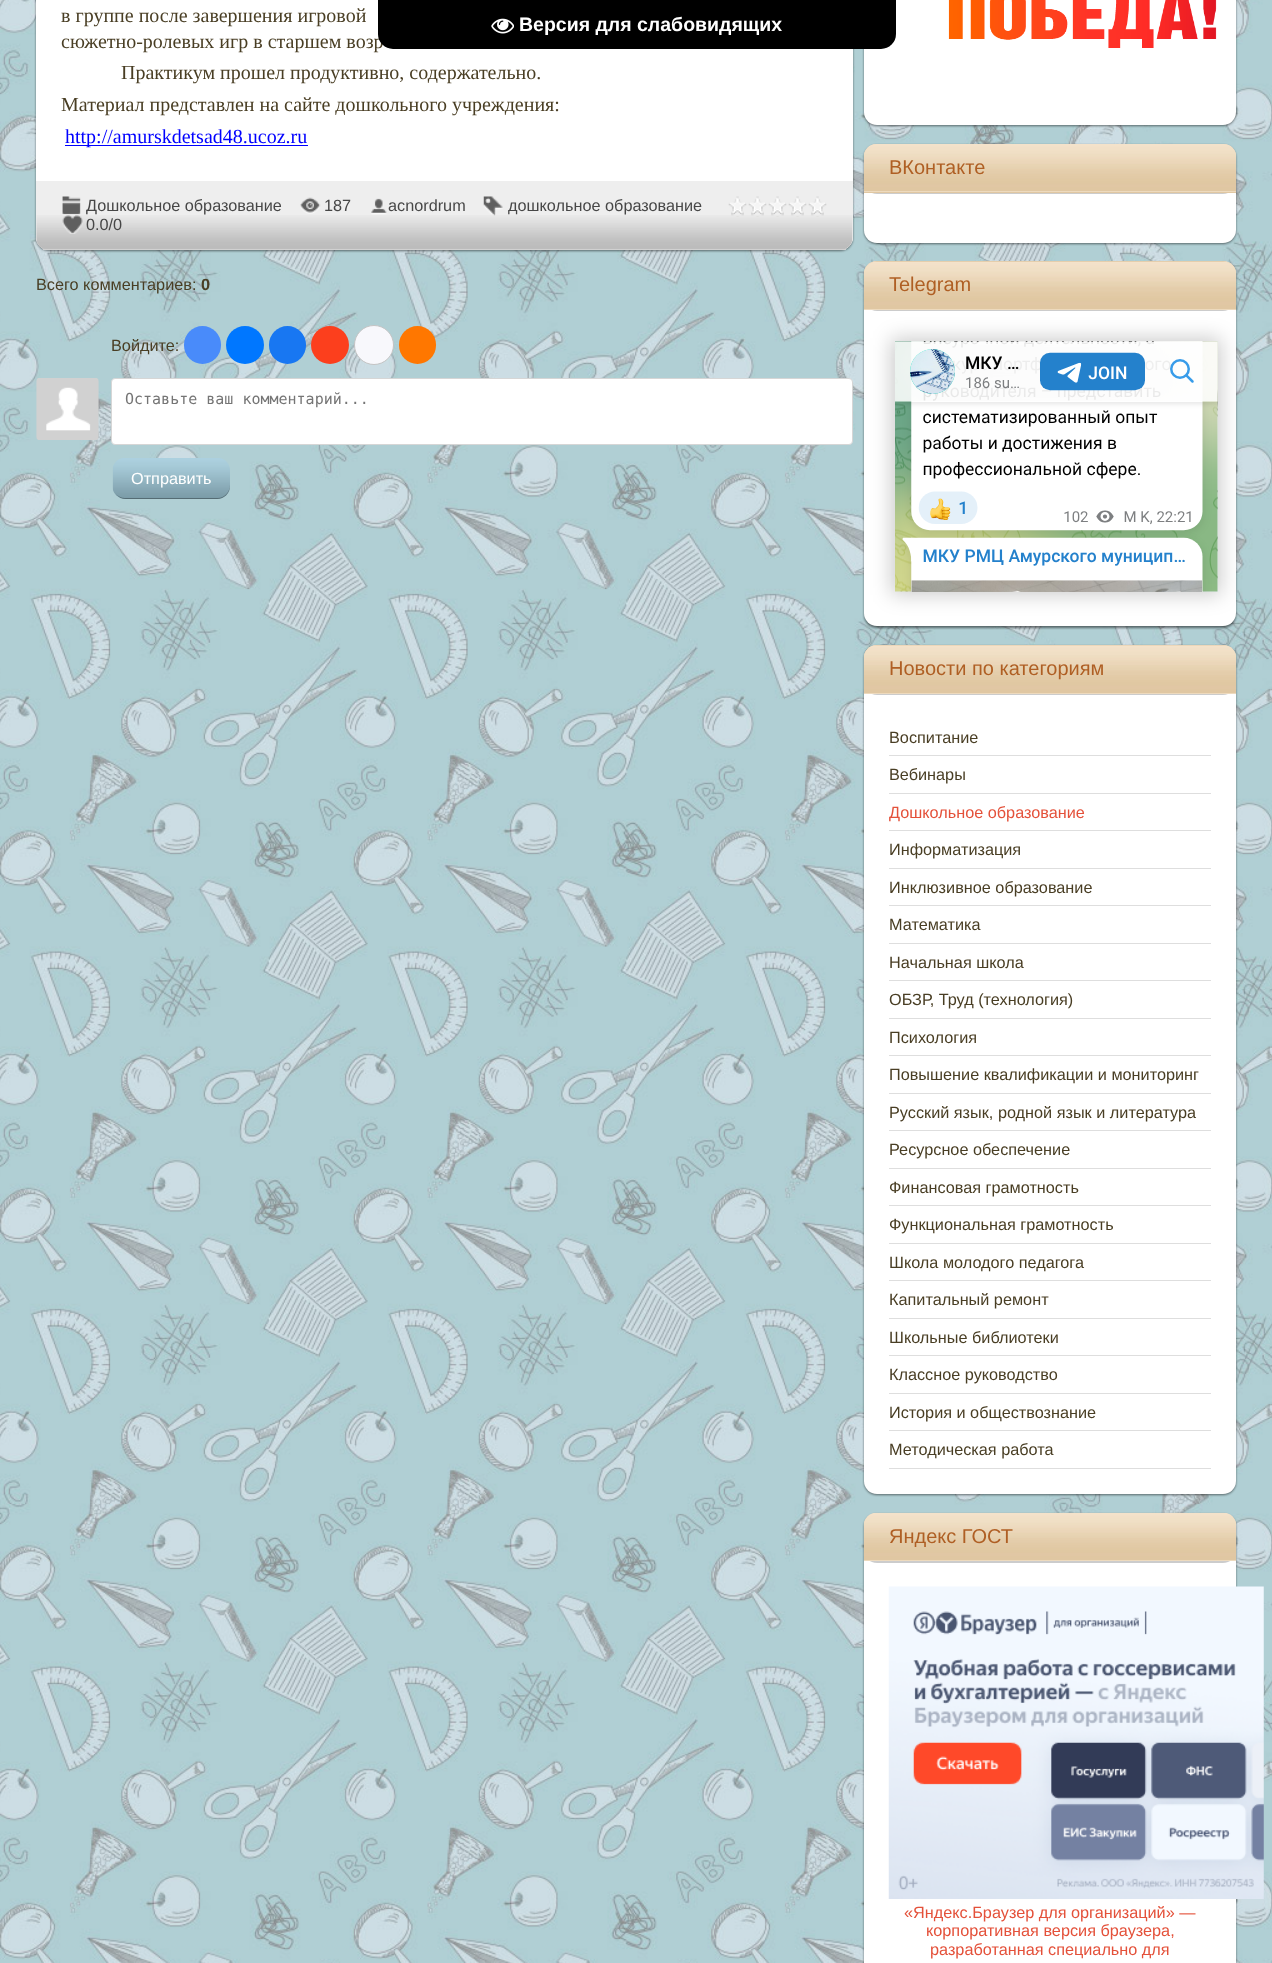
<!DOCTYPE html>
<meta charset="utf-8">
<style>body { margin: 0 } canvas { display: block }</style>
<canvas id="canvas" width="1272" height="1963"></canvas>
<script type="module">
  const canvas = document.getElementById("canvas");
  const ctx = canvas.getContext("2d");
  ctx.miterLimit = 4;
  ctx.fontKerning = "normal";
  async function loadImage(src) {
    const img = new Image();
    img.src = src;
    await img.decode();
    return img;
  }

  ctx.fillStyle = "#ffffff";
  ctx.fillRect(0, 0, 1272, 1963);
  ctx.drawImage(await loadImage("img1.png"), 0, 0, 1272, 1963);
  ctx.fillStyle = "rgba(0, 0, 0, 0.5)";
  ctx.filter = "blur(1px)";
  ctx.beginPath();
  ctx.roundRect(36, -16, 817, 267, 13);
  ctx.fill();
  ctx.filter = "none";
  ctx.fillStyle = "#ffffff";
  ctx.beginPath();
  ctx.roundRect(36, -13, 817, 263, 13);
  ctx.fill();
  ctx.font = "20px Liberation Serif";
  ctx.fillStyle = "#493e24";
  ctx.fillText("в группе после завершения игровой", 61, 22);
  ctx.fillText("сюжетно-ролевых игр в старшем возр", 61, 48);
  ctx.fillText("Практикум прошел продуктивно, содержательно.", 121, 79);
  ctx.fillText("Материал представлен на сайте дошкольного учреждения:", 61, 111);
  ctx.fillStyle = "#0000ff";
  ctx.fillRect(65, 145, 243, 1);
  ctx.fillText("http://amurskdetsad48.ucoz.ru", 65, 143);
  ctx.fillStyle = "#eeeeee";
  ctx.beginPath();
  ctx.roundRect(36, 181, 817, 69, [0, 0, 13, 13]);
  ctx.fill();
  ctx.drawImage(await loadImage("img2.png"), 36, 215, 817, 34);
  ctx.fillStyle = "#d1d1d1";
  ctx.fillRect(43, 249, 803, 1);
  ctx.drawImage(await loadImage("img3.png"), 62, 196, 19, 20);
  ctx.font = "16.25px Liberation Sans";
  ctx.fillStyle = "#474747";
  ctx.fillText("Дошкольное образование", 86, 211);
  ctx.drawImage(await loadImage("img4.png"), 300, 197, 21, 17);
  ctx.fillText("187", 324, 211);
  ctx.drawImage(await loadImage("img5.png"), 371, 198, 16, 17);
  ctx.fillText("acnordrum", 388, 211);
  ctx.drawImage(await loadImage("img6.png"), 483, 196, 20, 20);
  ctx.fillText("дошкольное образование", 508, 211);
  ctx.drawImage(await loadImage("img7.png"), 728, 196, 99, 21);
  ctx.drawImage(await loadImage("img8.png"), 62, 215, 21, 19);
  ctx.fillText("0.0/0", 86, 230);
  ctx.fillStyle = "#493e24";
  ctx.fillText("Всего комментариев:", 36, 290);
  ctx.font = "bold 16.25px Liberation Sans";
  ctx.fillText("0", 201, 290);
  ctx.font = "16.25px Liberation Sans";
  ctx.fillText("Войдите:", 111, 351);
  ctx.fillStyle = "#498bfa";
  ctx.beginPath();
  ctx.roundRect(184, 326, 37, 38, 18.5);
  ctx.fill();
  ctx.fillStyle = "#0077ff";
  ctx.beginPath();
  ctx.arc(245, 345, 19, 0, Math.PI * 2);
  ctx.fill();
  ctx.fillStyle = "#1877f2";
  ctx.beginPath();
  ctx.roundRect(269, 326, 37, 38, 18.5);
  ctx.fill();
  ctx.fillStyle = "#fc3f1d";
  ctx.beginPath();
  ctx.arc(330, 345, 19, 0, Math.PI * 2);
  ctx.fill();
  ctx.fillStyle = "#f8f8fc";
  ctx.beginPath();
  ctx.arc(374, 345, 19.5, 0, Math.PI * 2);
  ctx.fill();
  ctx.strokeStyle = "#c4c4c4";
  ctx.stroke();
  ctx.fillStyle = "#ff7700";
  ctx.beginPath();
  ctx.roundRect(399, 326, 37, 38, 18.5);
  ctx.fill();
  ctx.drawImage(await loadImage("img9.png"), 36, 378, 63, 62);
  ctx.fillStyle = "#ffffff";
  ctx.beginPath();
  ctx.roundRect(111.5, 378.5, 741, 66, 3.5);
  ctx.fill();
  ctx.strokeStyle = "#d6d6d6";
  ctx.stroke();
  ctx.font = "15px DejaVu Sans Mono";
  ctx.fillStyle = "#757575";
  ctx.fillText("Оставьте ваш комментарий...", 125, 404);
  ctx.drawImage(await loadImage("img10.png"), 112, 458, 118, 41);
  ctx.fillStyle = "rgba(0, 0, 0, 0.3)";
  ctx.beginPath();
  ctx.moveTo(116, 494);
  ctx.bezierCurveTo(118, 497, 122, 499, 126, 499);
  ctx.lineTo(217, 499);
  ctx.bezierCurveTo(224, 499, 230, 493, 230, 486);
  ctx.lineTo(230, 485);
  ctx.bezierCurveTo(230, 492, 224, 498, 218, 498);
  ctx.lineTo(125, 498);
  ctx.bezierCurveTo(121, 498, 118, 496, 116, 494);
  ctx.closePath();
  ctx.fill();
  ctx.font = "16.25px Liberation Sans";
  ctx.fillStyle = "#ffffff";
  ctx.fillText("Отправить", 131, 484);
  ctx.fillStyle = "rgba(0, 0, 0, 0.5)";
  ctx.filter = "blur(1px)";
  ctx.beginPath();
  ctx.roundRect(864, -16, 372, 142, 13);
  ctx.fill();
  ctx.filter = "none";
  ctx.fillStyle = "#ffffff";
  ctx.beginPath();
  ctx.roundRect(864, -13, 372, 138, 13);
  ctx.fill();
  ctx.drawImage(await loadImage("img11.png"), 948, 0, 269, 48);
  ctx.fillStyle = "rgba(0, 0, 0, 0.5)";
  ctx.filter = "blur(1px)";
  ctx.beginPath();
  ctx.roundRect(864, 145, 372, 99, 13);
  ctx.fill();
  ctx.filter = "none";
  ctx.fillStyle = "#ffffff";
  ctx.beginPath();
  ctx.roundRect(864, 144, 372, 99, 13);
  ctx.fill();
  ctx.fillStyle = "rgba(0, 0, 0, 0.2)";
  ctx.filter = "blur(0.5px)";
  ctx.beginPath();
  ctx.roundRect(864, 145, 372, 49, 13);
  ctx.fill();
  ctx.filter = "none";
  ctx.fillStyle = "#e0c7a2";
  ctx.beginPath();
  ctx.roundRect(864, 144, 372, 49, [13, 13, 0, 0]);
  ctx.fill();
  ctx.drawImage(await loadImage("img12.png"), 863, 144, 374, 43);
  ctx.fillStyle = "#eddabe";
  ctx.fillRect(864, 191, 372, 1);
  ctx.font = "20px Liberation Sans";
  ctx.fillStyle = "#af5f24";
  ctx.fillText("ВКонтакте", 889, 174);
  ctx.fillStyle = "rgba(0, 0, 0, 0.5)";
  ctx.filter = "blur(1px)";
  ctx.beginPath();
  ctx.roundRect(864, 263, 372, 365, 13);
  ctx.fill();
  ctx.filter = "none";
  ctx.fillStyle = "#ffffff";
  ctx.beginPath();
  ctx.roundRect(864, 261, 372, 365, 13);
  ctx.fill();
  ctx.fillStyle = "rgba(0, 0, 0, 0.2)";
  ctx.filter = "blur(0.5px)";
  ctx.beginPath();
  ctx.roundRect(864, 263, 372, 48, 13);
  ctx.fill();
  ctx.filter = "none";
  ctx.fillStyle = "#e0c7a2";
  ctx.beginPath();
  ctx.roundRect(864, 261, 372, 49, [13, 13, 0, 0]);
  ctx.fill();
  ctx.drawImage(await loadImage("img13.png"), 863, 261, 374, 44);
  ctx.fillStyle = "#eddabe";
  ctx.fillRect(864, 309, 372, 1);
  ctx.fillStyle = "#af5f24";
  ctx.fillText("Telegram", 889, 291);
  ctx.fillStyle = "rgba(0, 0, 0, 0.2)";
  ctx.filter = "blur(10px)";
  ctx.beginPath();
  ctx.rect(891, 338, 330, 257);
  ctx.fill();
  ctx.filter = "none";
  ctx.drawImage(await loadImage("img14.png"), 895, 341, 323, 251);
  ctx.fillStyle = "rgba(0, 0, 0, 0.5)";
  ctx.filter = "blur(1px)";
  ctx.beginPath();
  ctx.roundRect(864, 646, 372, 849, 13);
  ctx.fill();
  ctx.filter = "none";
  ctx.fillStyle = "#ffffff";
  ctx.beginPath();
  ctx.roundRect(864, 645, 372, 849, 13);
  ctx.fill();
  ctx.fillStyle = "rgba(0, 0, 0, 0.2)";
  ctx.filter = "blur(0.5px)";
  ctx.beginPath();
  ctx.roundRect(864, 646, 372, 49, 13);
  ctx.fill();
  ctx.filter = "none";
  ctx.fillStyle = "#e0c7a2";
  ctx.beginPath();
  ctx.roundRect(864, 645, 372, 49, [13, 13, 0, 0]);
  ctx.fill();
  ctx.drawImage(await loadImage("img15.png"), 863, 645, 374, 44);
  ctx.fillStyle = "#eddabe";
  ctx.fillRect(864, 693, 372, 1);
  ctx.fillStyle = "#af5f24";
  ctx.fillText("Новости по категориям", 889, 675);
  ctx.fillStyle = "#dedede";
  ctx.fillRect(889, 755, 322, 1);
  ctx.font = "16.25px Liberation Sans";
  ctx.fillStyle = "#493e24";
  ctx.fillText("Воспитание", 889, 743);
  ctx.fillStyle = "#dedede";
  ctx.fillRect(889, 793, 322, 1);
  ctx.fillStyle = "#493e24";
  ctx.fillText("Вебинары", 889, 780);
  ctx.fillStyle = "#dedede";
  ctx.fillRect(889, 830, 322, 1);
  ctx.fillStyle = "#e4513a";
  ctx.fillText("Дошкольное образование", 889, 818);
  ctx.fillStyle = "#dedede";
  ctx.fillRect(889, 868, 322, 1);
  ctx.fillStyle = "#493e24";
  ctx.fillText("Информатизация", 889, 855);
  ctx.fillStyle = "#dedede";
  ctx.fillRect(889, 905, 322, 1);
  ctx.fillStyle = "#493e24";
  ctx.fillText("Инклюзивное образование", 889, 893);
  ctx.fillStyle = "#dedede";
  ctx.fillRect(889, 943, 322, 1);
  ctx.fillStyle = "#493e24";
  ctx.fillText("Математика", 889, 930);
  ctx.fillStyle = "#dedede";
  ctx.fillRect(889, 980, 322, 1);
  ctx.fillStyle = "#493e24";
  ctx.fillText("Начальная школа", 889, 968);
  ctx.fillStyle = "#dedede";
  ctx.fillRect(889, 1018, 322, 1);
  ctx.fillStyle = "#493e24";
  ctx.fillText("ОБЗР, Труд (технология)", 889, 1005);
  ctx.fillStyle = "#dedede";
  ctx.fillRect(889, 1055, 322, 1);
  ctx.fillStyle = "#493e24";
  ctx.fillText("Психология", 889, 1043);
  ctx.fillStyle = "#dedede";
  ctx.fillRect(889, 1093, 322, 1);
  ctx.fillStyle = "#493e24";
  ctx.fillText("Повышение квалификации и мониторинг", 889, 1080);
  ctx.fillStyle = "#dedede";
  ctx.fillRect(889, 1130, 322, 1);
  ctx.fillStyle = "#493e24";
  ctx.fillText("Русский язык, родной язык и литература", 889, 1118);
  ctx.fillStyle = "#dedede";
  ctx.fillRect(889, 1168, 322, 1);
  ctx.fillStyle = "#493e24";
  ctx.fillText("Ресурсное обеспечение", 889, 1155);
  ctx.fillStyle = "#dedede";
  ctx.fillRect(889, 1205, 322, 1);
  ctx.fillStyle = "#493e24";
  ctx.fillText("Финансовая грамотность", 889, 1193);
  ctx.fillStyle = "#dedede";
  ctx.fillRect(889, 1243, 322, 1);
  ctx.fillStyle = "#493e24";
  ctx.fillText("Функциональная грамотность", 889, 1230);
  ctx.fillStyle = "#dedede";
  ctx.fillRect(889, 1280, 322, 1);
  ctx.fillStyle = "#493e24";
  ctx.fillText("Школа молодого педагога", 889, 1268);
  ctx.fillStyle = "#dedede";
  ctx.fillRect(889, 1318, 322, 1);
  ctx.fillStyle = "#493e24";
  ctx.fillText("Капитальный ремонт", 889, 1305);
  ctx.fillStyle = "#dedede";
  ctx.fillRect(889, 1355, 322, 1);
  ctx.fillStyle = "#493e24";
  ctx.fillText("Школьные библиотеки", 889, 1343);
  ctx.fillStyle = "#dedede";
  ctx.fillRect(889, 1393, 322, 1);
  ctx.fillStyle = "#493e24";
  ctx.fillText("Классное руководство", 889, 1380);
  ctx.fillStyle = "#dedede";
  ctx.fillRect(889, 1430, 322, 1);
  ctx.fillStyle = "#493e24";
  ctx.fillText("История и обществознание", 889, 1418);
  ctx.fillStyle = "#dedede";
  ctx.fillRect(889, 1468, 322, 1);
  ctx.fillStyle = "#493e24";
  ctx.fillText("Методическая работа", 889, 1455);
  ctx.fillStyle = "rgba(0, 0, 0, 0.5)";
  ctx.filter = "blur(1px)";
  ctx.beginPath();
  ctx.roundRect(864, 1514, 372, 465, 13);
  ctx.fill();
  ctx.filter = "none";
  ctx.fillStyle = "#ffffff";
  ctx.beginPath();
  ctx.roundRect(864, 1513, 372, 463, 13);
  ctx.fill();
  ctx.fillStyle = "rgba(0, 0, 0, 0.2)";
  ctx.filter = "blur(0.5px)";
  ctx.beginPath();
  ctx.roundRect(864, 1514, 372, 49, 13);
  ctx.fill();
  ctx.filter = "none";
  ctx.fillStyle = "#e0c7a2";
  ctx.beginPath();
  ctx.roundRect(864, 1513, 372, 48, [13, 13, 0, 0]);
  ctx.fill();
  ctx.drawImage(await loadImage("img16.png"), 863, 1512, 374, 44);
  ctx.fillStyle = "#eddabe";
  ctx.fillRect(864, 1560, 372, 1);
  ctx.font = "20px Liberation Sans";
  ctx.fillStyle = "#af5f24";
  ctx.fillText("Яндекс ГОСТ", 889, 1543);
  ctx.drawImage(await loadImage("img17.png"), 888, 1586, 376, 313);
  ctx.font = "16.25px Liberation Sans";
  ctx.fillStyle = "#e4513a";
  ctx.fillText("«Яндекс.Браузер для организаций» —", 904, 1918);
  ctx.fillText("корпоративная версия браузера,", 926, 1936);
  ctx.fillText("разработанная специально для", 930, 1955);
  ctx.fillStyle = "#000000";
  ctx.beginPath();
  ctx.roundRect(378, 0, 518, 49, [0, 0, 15, 15]);
  ctx.fill();
  ctx.drawImage(await loadImage("img18.png"), 491, 18, 23, 16);
  ctx.font = "bold 19.5px Liberation Sans";
  ctx.fillStyle = "#ffffff";
  ctx.fillText("Версия для слабовидящих", 519, 31);
</script>
